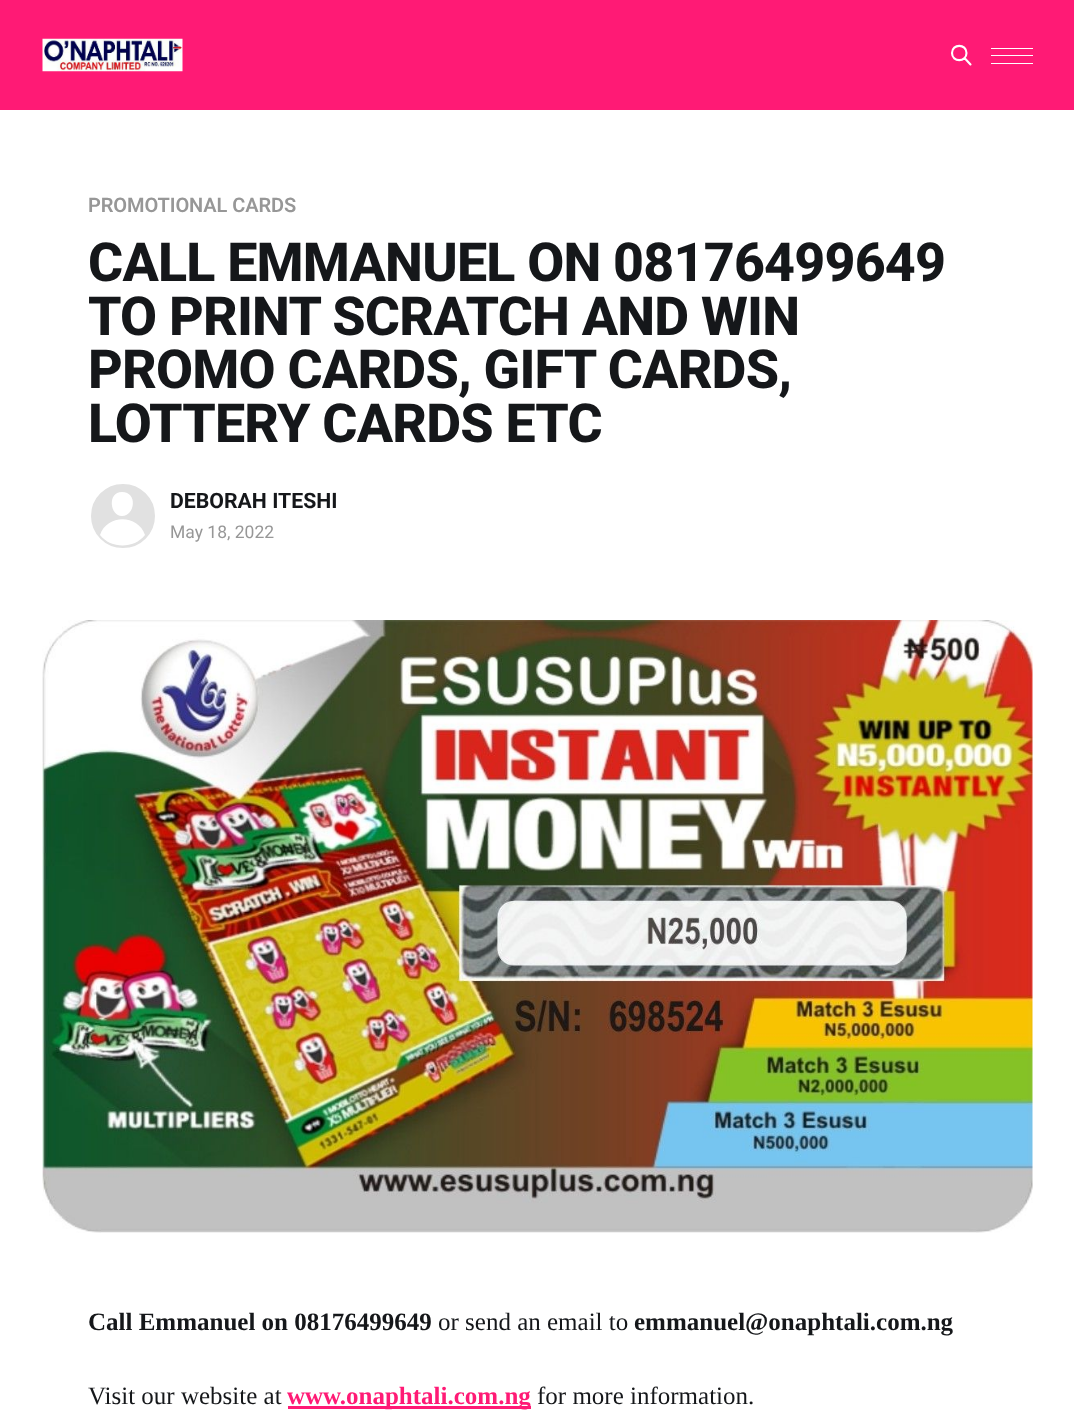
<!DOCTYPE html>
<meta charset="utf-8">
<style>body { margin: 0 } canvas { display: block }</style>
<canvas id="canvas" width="1074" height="1427"></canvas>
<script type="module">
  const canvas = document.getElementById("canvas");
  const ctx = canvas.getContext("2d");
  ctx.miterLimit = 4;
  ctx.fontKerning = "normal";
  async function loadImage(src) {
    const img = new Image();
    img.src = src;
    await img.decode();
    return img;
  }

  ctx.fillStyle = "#ffffff";
  ctx.fillRect(0, 0, 1074, 1427);
  ctx.fillStyle = "#ff1a75";
  ctx.fillRect(0, 0, 1074, 110);
  ctx.drawImage(await loadImage("img1.png"), 42, 38, 141, 34);
  ctx.beginPath();
  ctx.moveTo(970.5, 64.5);
  ctx.lineTo(964.5, 58);
  ctx.moveTo(966.5, 53);
  ctx.bezierCurveTo(966.5, 62.5, 952, 62.5, 952, 53);
  ctx.bezierCurveTo(952, 43.5, 966.5, 43.5, 966.5, 53);
  ctx.closePath();
  ctx.strokeStyle = "#ffffff";
  ctx.lineWidth = 2.1;
  ctx.lineCap = "round";
  ctx.lineJoin = "round";
  ctx.stroke();
  ctx.fillStyle = "#ffffff";
  ctx.fillRect(991, 48, 42, 1);
  ctx.fillRect(991, 63, 42, 1);
  ctx.fillRect(991, 55, 42, 1);
  ctx.letterSpacing = "-0.1px";
  ctx.font = "600 20px Roboto";
  ctx.fillStyle = "#979797";
  ctx.fillText("PROMOTIONAL CARDS", 88, 212);
  ctx.letterSpacing = "-0.8px";
  ctx.font = "800 53.75px Roboto";
  ctx.fillStyle = "#15171a";
  ctx.fillText("CALL EMMANUEL ON 08176499649", 88, 281);
  ctx.fillText("TO PRINT SCRATCH AND WIN", 88, 335);
  ctx.fillText("PROMO CARDS, GIFT CARDS,", 88, 388);
  ctx.fillText("LOTTERY CARDS ETC", 88, 442);
  ctx.fillStyle = "#e1e1e1";
  ctx.beginPath();
  ctx.arc(123, 516, 33.5, 0, Math.PI * 2);
  ctx.fill();
  ctx.lineWidth = 3;
  ctx.stroke();
  ctx.fillStyle = "#ffffff";
  ctx.beginPath();
  ctx.moveTo(100, 535);
  ctx.bezierCurveTo(107, 514, 138, 514, 145, 535);
  ctx.bezierCurveTo(134, 549, 111, 549, 100, 535);
  ctx.closePath();
  ctx.moveTo(122, 516);
  ctx.bezierCurveTo(135, 516, 138, 492, 122, 492);
  ctx.bezierCurveTo(107, 492, 110, 516, 122, 516);
  ctx.closePath();
  ctx.fill("evenodd");
  ctx.letterSpacing = "0px";
  ctx.font = "bold 21.25px Roboto";
  ctx.fillStyle = "#15171a";
  ctx.fillText("DEBORAH ITESHI", 170, 508);
  ctx.font = "17.5px Roboto";
  ctx.fillStyle = "#979797";
  ctx.fillText("May 18, 2022", 170, 538);
  ctx.drawImage(await loadImage("img2.png"), 42, 620, 991, 613);
  ctx.font = "bold 25px Liberation Serif";
  ctx.fillStyle = "#15171a";
  ctx.fillText("Call Emmanuel on 08176499649", 88, 1330);
  ctx.font = "25px Liberation Serif";
  ctx.fillText("or send an email to", 438, 1330);
  ctx.font = "bold 25px Liberation Serif";
  ctx.fillText("emmanuel@onaphtali.com.ng", 634, 1330);
  ctx.font = "25px Liberation Serif";
  ctx.fillText("Visit our website at", 88, 1404);
  ctx.fillStyle = "#ff1a75";
  ctx.fillRect(288, 1406, 243, 3);
  ctx.font = "bold 25px Liberation Serif";
  ctx.fillText("www.onaphtali.com.ng", 287, 1404);
  ctx.font = "25px Liberation Serif";
  ctx.fillStyle = "#15171a";
  ctx.fillText("for more information.", 537, 1404);
</script>
